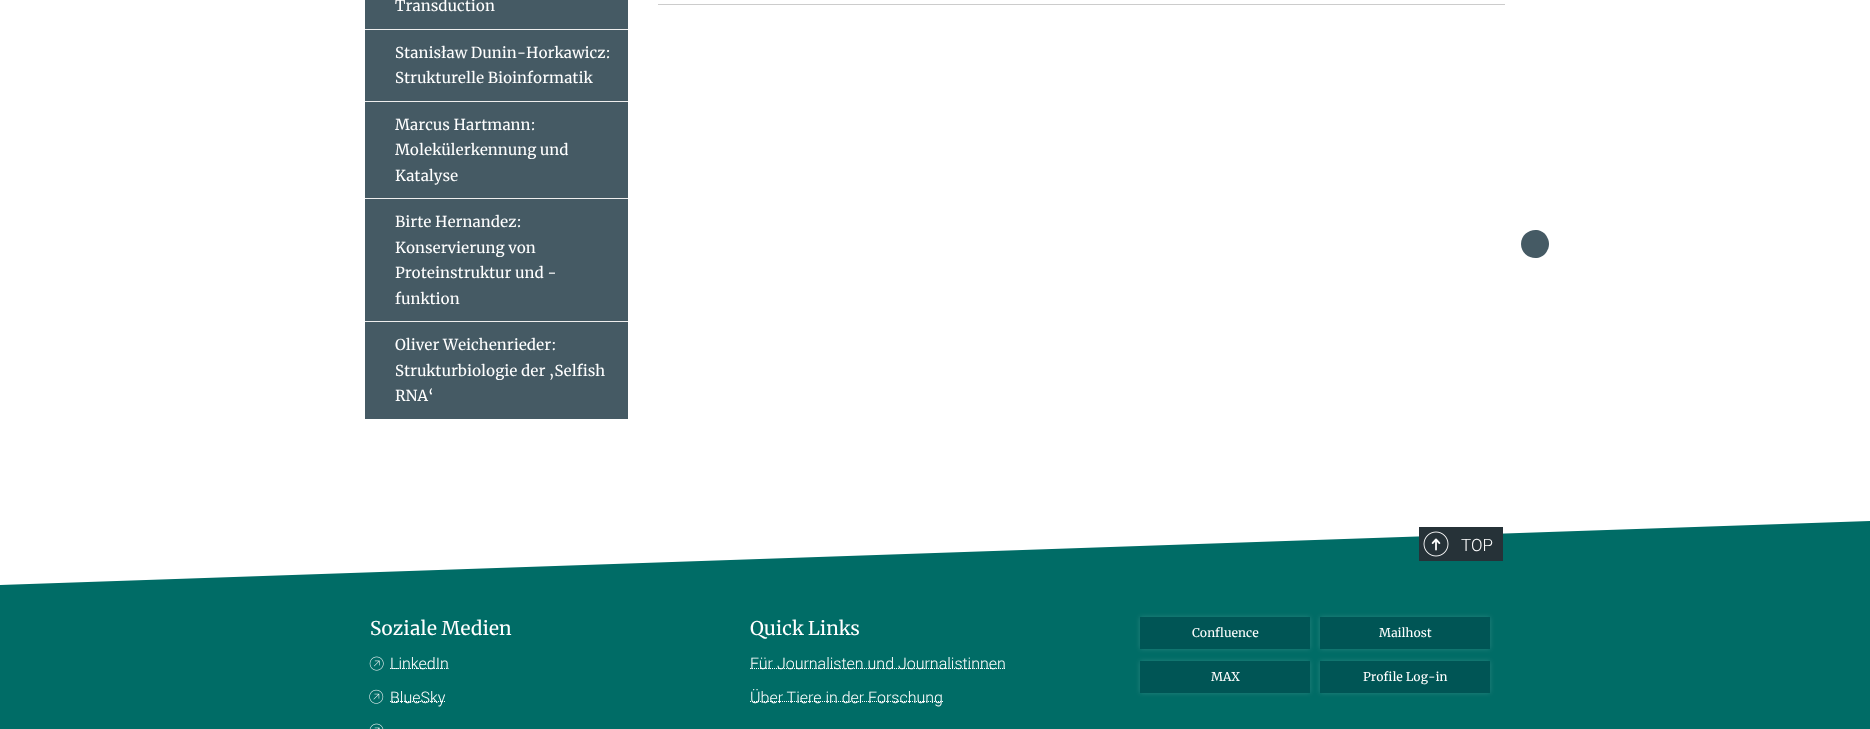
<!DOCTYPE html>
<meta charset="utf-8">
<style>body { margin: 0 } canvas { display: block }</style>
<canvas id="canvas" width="1870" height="729"></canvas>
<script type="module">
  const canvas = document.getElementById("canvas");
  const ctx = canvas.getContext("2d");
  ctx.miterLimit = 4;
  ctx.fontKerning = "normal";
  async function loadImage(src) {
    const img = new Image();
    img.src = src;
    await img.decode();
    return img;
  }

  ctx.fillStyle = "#ffffff";
  ctx.fillRect(0, 0, 1870, 729);
  ctx.fillStyle = "#455a64";
  ctx.fillRect(365, 0, 263, 29);
  ctx.fillStyle = "#eeeeee";
  ctx.fillRect(365, 29, 263, 1);
  ctx.font = "15px Merriweather";
  ctx.fillStyle = "#ffffff";
  ctx.fillText("Transduction", 395, 11);
  ctx.fillStyle = "#455a64";
  ctx.fillRect(365, 30, 263, 71);
  ctx.fillStyle = "#eeeeee";
  ctx.fillRect(365, 101, 263, 1);
  ctx.fillStyle = "#ffffff";
  ctx.fillText("Stanisław Dunin-Horkawicz:", 395, 58);
  ctx.fillText("Strukturelle Bioinformatik", 395, 83);
  ctx.fillStyle = "#455a64";
  ctx.fillRect(365, 102, 263, 96);
  ctx.fillStyle = "#eeeeee";
  ctx.fillRect(365, 198, 263, 1);
  ctx.fillStyle = "#ffffff";
  ctx.fillText("Marcus Hartmann:", 395, 130);
  ctx.fillText("Molekülerkennung und", 395, 155);
  ctx.fillText("Katalyse", 395, 181);
  ctx.fillStyle = "#455a64";
  ctx.fillRect(365, 199, 263, 122);
  ctx.fillStyle = "#eeeeee";
  ctx.fillRect(365, 321, 263, 1);
  ctx.fillStyle = "#ffffff";
  ctx.fillText("Birte Hernandez:", 395, 227);
  ctx.fillText("Konservierung von", 395, 253);
  ctx.fillText("Proteinstruktur und -", 395, 278);
  ctx.fillText("funktion", 395, 304);
  ctx.fillStyle = "#455a64";
  ctx.fillRect(365, 322, 263, 97);
  ctx.fillStyle = "#ffffff";
  ctx.fillText("Oliver Weichenrieder:", 395, 350);
  ctx.fillText("Strukturbiologie der ‚Selfish", 395, 376);
  ctx.fillText("RNA‘", 395, 401);
  ctx.fillStyle = "#cccccc";
  ctx.fillRect(658, 4, 847, 1);
  ctx.fillStyle = "#455a64";
  ctx.beginPath();
  ctx.moveTo(1549, 244);
  ctx.bezierCurveTo(1549, 247, 1548, 249.5, 1546.5, 252);
  ctx.bezierCurveTo(1539, 263.5, 1521, 257.5, 1521, 244);
  ctx.bezierCurveTo(1521, 230.5, 1539, 224.5, 1546.5, 236);
  ctx.bezierCurveTo(1548, 238.5, 1549, 241, 1549, 244);
  ctx.closePath();
  ctx.fill();
  ctx.fillStyle = "#006c66";
  ctx.fillRect(0, 591, 1870, 138);
  ctx.beginPath();
  ctx.moveTo(0, 585);
  ctx.lineTo(1870, 521);
  ctx.lineTo(1870, 591);
  ctx.lineTo(0, 591);
  ctx.fill();
  ctx.fillStyle = "#263238";
  ctx.fillRect(1419, 527, 84, 34);
  ctx.drawImage(await loadImage("img1.png"), 1431, 538, 10, 13);
  ctx.drawImage(await loadImage("img2.png"), 1423, 531, 26, 26);
  ctx.font = "300 17px Roboto";
  ctx.fillStyle = "#ffffff";
  ctx.fillText("TOP", 1461, 551);
  ctx.font = "19px Merriweather";
  ctx.fillText("Soziale Medien", 370, 635);
  ctx.drawImage(await loadImage("img3.png"), 369, 656, 15, 15);
  ctx.beginPath();
  ctx.moveTo(390, 668.5);
  ctx.lineTo(448.5, 668.5);
  ctx.strokeStyle = "#ffffff";
  ctx.setLineDash([1, 1]);
  ctx.stroke();
  ctx.font = "300 16px Roboto";
  ctx.fillText("LinkedIn", 390, 669);
  ctx.drawImage(await loadImage("img4.png"), 369, 689, 15, 15);
  ctx.beginPath();
  ctx.moveTo(390, 701.5);
  ctx.lineTo(445, 701.5);
  ctx.stroke();
  ctx.fillText("BlueSky", 390, 703);
  ctx.drawImage(await loadImage("img5.png"), 369, 723, 15, 6);
  ctx.font = "19px Merriweather";
  ctx.fillText("Quick Links", 750, 635);
  ctx.beginPath();
  ctx.moveTo(750, 668.5);
  ctx.lineTo(1006, 668.5);
  ctx.stroke();
  ctx.font = "300 16px Roboto";
  ctx.fillText("Für Journalisten und Journalistinnen", 750, 669);
  ctx.beginPath();
  ctx.moveTo(750, 701.5);
  ctx.lineTo(943, 701.5);
  ctx.stroke();
  ctx.fillText("Über Tiere in der Forschung", 750, 703);
  ctx.fillStyle = "rgba(255, 255, 255, 0.15)";
  ctx.filter = "blur(2.5px)";
  ctx.beginPath();
  ctx.rect(1140, 617, 170, 32);
  ctx.fill();
  ctx.filter = "none";
  ctx.fillStyle = "#005555";
  ctx.fillRect(1140, 617, 170, 32);
  ctx.font = "12px Merriweather";
  ctx.fillStyle = "#ffffff";
  ctx.fillText("Confluence", 1192, 637);
  ctx.fillStyle = "rgba(255, 255, 255, 0.15)";
  ctx.filter = "blur(2.5px)";
  ctx.beginPath();
  ctx.rect(1320, 617, 170, 32);
  ctx.fill();
  ctx.filter = "none";
  ctx.fillStyle = "#005555";
  ctx.fillRect(1320, 617, 170, 32);
  ctx.fillStyle = "#ffffff";
  ctx.fillText("Mailhost", 1379, 637);
  ctx.fillStyle = "rgba(255, 255, 255, 0.15)";
  ctx.filter = "blur(2.5px)";
  ctx.beginPath();
  ctx.rect(1140, 661, 170, 32);
  ctx.fill();
  ctx.filter = "none";
  ctx.fillStyle = "#005555";
  ctx.fillRect(1140, 661, 170, 32);
  ctx.fillStyle = "#ffffff";
  ctx.fillText("MAX", 1211, 681);
  ctx.fillStyle = "rgba(255, 255, 255, 0.15)";
  ctx.filter = "blur(2.5px)";
  ctx.beginPath();
  ctx.rect(1320, 661, 170, 32);
  ctx.fill();
  ctx.filter = "none";
  ctx.fillStyle = "#005555";
  ctx.fillRect(1320, 661, 170, 32);
  ctx.fillStyle = "#ffffff";
  ctx.fillText("Profile Log-in", 1363, 681);
</script>
